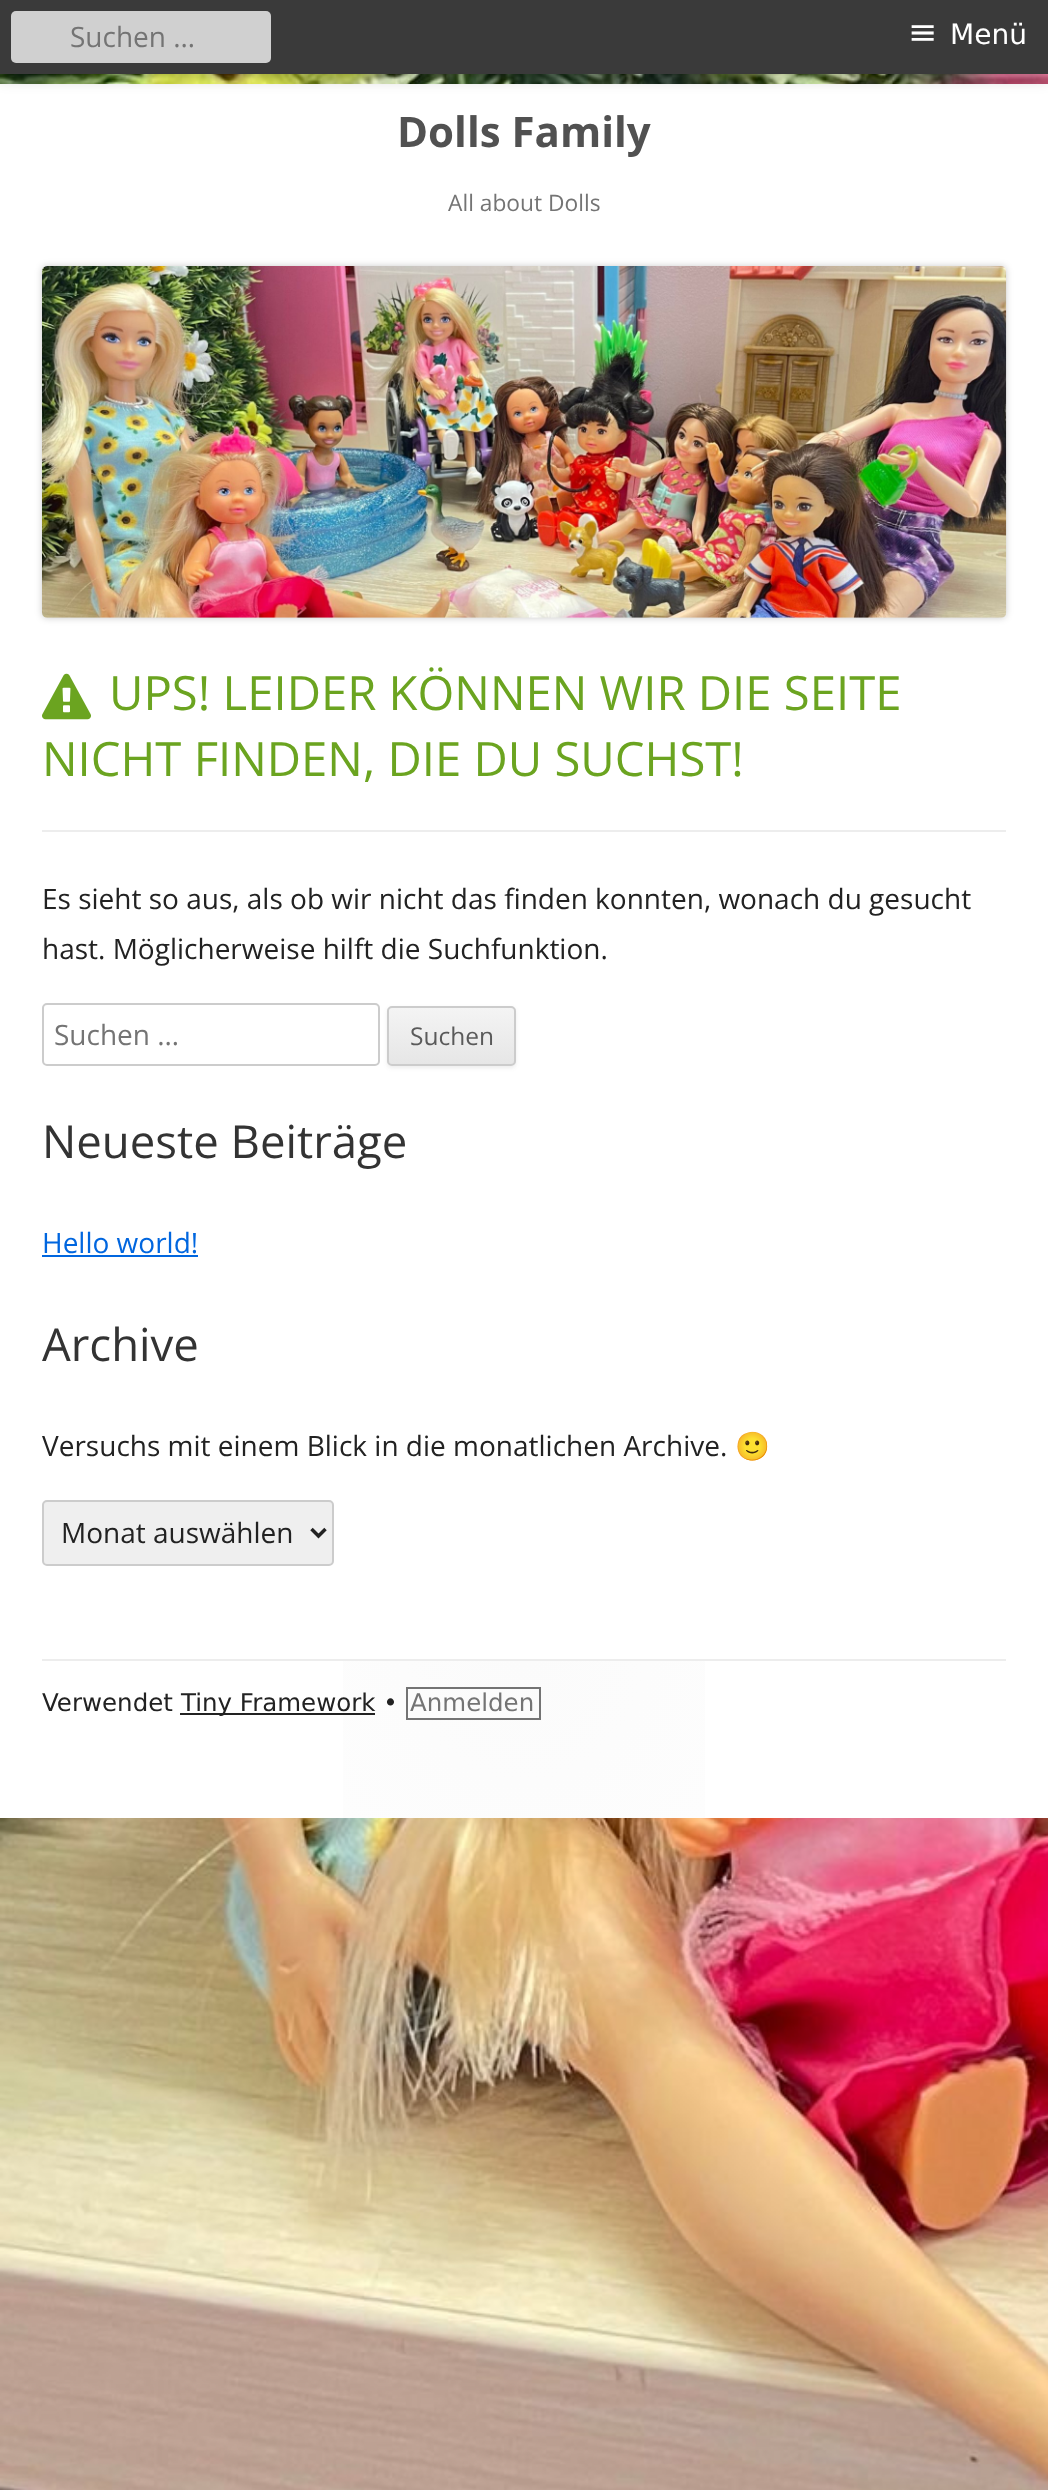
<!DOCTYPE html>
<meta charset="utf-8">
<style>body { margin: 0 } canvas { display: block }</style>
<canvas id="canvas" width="1048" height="2490"></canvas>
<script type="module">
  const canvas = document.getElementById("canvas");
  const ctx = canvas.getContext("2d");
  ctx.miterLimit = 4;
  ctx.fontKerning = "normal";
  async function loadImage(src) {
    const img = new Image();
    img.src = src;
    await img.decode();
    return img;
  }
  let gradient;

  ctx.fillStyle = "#ffffff";
  ctx.fillRect(0, 0, 1048, 2490);
  ctx.drawImage(await loadImage("img1.png"), 0, 74, 1048, 2416);
  ctx.fillRect(0, 84, 1048, 1734);
  ctx.fillStyle = "rgba(0, 0, 0, 0.4)";
  ctx.filter = "blur(9px)";
  ctx.beginPath();
  ctx.rect(0, 0, 1048, 74);
  ctx.fill();
  ctx.filter = "none";
  ctx.fillStyle = "#3a3a3a";
  ctx.fillRect(0, 0, 1048, 74);
  ctx.fillStyle = "#d0d0d0";
  ctx.beginPath();
  ctx.roundRect(11, 11, 260, 52, 5);
  ctx.fill();
  ctx.font = "28px Open Sans";
  ctx.fillStyle = "#747474";
  ctx.fillText("Suchen …", 70, 47);
  ctx.font = "35px DejaVu Sans";
  ctx.fillStyle = "#ffffff";
  ctx.fillText("≡", 908, 44);
  ctx.font = "28px DejaVu Sans";
  ctx.fillText("Menü", 950, 44);
  ctx.font = "bold 42px Open Sans";
  ctx.fillStyle = "#515151";
  ctx.fillText("Dolls Family", 397, 147);
  ctx.font = "22.75px Open Sans";
  ctx.fillStyle = "#747474";
  ctx.fillText("All about Dolls", 448, 211);
  ctx.fillStyle = "rgba(0, 0, 0, 0.2)";
  ctx.filter = "blur(3.5px)";
  ctx.beginPath();
  ctx.roundRect(42, 266, 964, 352, 5);
  ctx.fill();
  ctx.filter = "none";
  ctx.drawImage(await loadImage("img2.png"), 42, 266, 965, 352);
  ctx.fillStyle = "#ededed";
  ctx.fillRect(42, 830, 964, 2);
  ctx.drawImage(await loadImage("img3.png"), 42, 673, 49, 47);
  ctx.font = "47.25px Open Sans";
  ctx.fillStyle = "#6ba420";
  ctx.fillText("UPS! LEIDER KÖNNEN WIR DIE SEITE", 109, 710);
  ctx.fillText("NICHT FINDEN, DIE DU SUCHST!", 42, 776);
  ctx.font = "28px Open Sans";
  ctx.fillStyle = "#222222";
  ctx.fillText("Es sieht so aus, als ob wir nicht das finden konnten, wonach du gesucht", 42, 909);
  ctx.fillText("hast. Möglicherweise hilft die Suchfunktion.", 42, 959);
  ctx.beginPath();
  ctx.roundRect(43, 1004, 336, 61, 4);
  ctx.strokeStyle = "#cccccc";
  ctx.lineWidth = 2;
  ctx.stroke();
  ctx.fillStyle = "#747474";
  ctx.fillText("Suchen …", 54, 1045);
  ctx.fillStyle = "rgba(64, 64, 64, 0.1)";
  ctx.filter = "blur(2px)";
  ctx.beginPath();
  ctx.roundRect(387, 1008, 129, 60, 5);
  ctx.fill();
  ctx.filter = "none";
  ctx.save();
  ctx.beginPath();
  ctx.roundRect(387, 1006, 129, 60, 5);
  ctx.clip();
  gradient = ctx.createLinearGradient(452, 1008, 452, 1064);
  gradient.addColorStop(0, "#f4f4f4");
  gradient.addColorStop(1, "#e6e6e6");
  ctx.fillStyle = gradient;
  ctx.fillRect(387, 1008, 129, 56);
  ctx.restore();
  ctx.beginPath();
  ctx.roundRect(388, 1007, 127, 58, 4);
  ctx.stroke();
  ctx.font = "24.5px Open Sans";
  ctx.fillStyle = "#5a5a5a";
  ctx.fillText("Suchen", 410, 1045);
  ctx.font = "45.5px Open Sans";
  ctx.fillStyle = "#333333";
  ctx.fillText("Neueste Beiträge", 42, 1158);
  ctx.font = "28px Open Sans";
  ctx.fillStyle = "#0066df";
  ctx.fillText("Hello world!", 42, 1253);
  ctx.fillRect(42, 1255, 156, 2);
  ctx.font = "45.5px Open Sans";
  ctx.fillStyle = "#333333";
  ctx.fillText("Archive", 42, 1361);
  ctx.font = "28px Open Sans";
  ctx.fillStyle = "#222222";
  ctx.fillText("Versuchs mit einem Blick in die monatlichen Archive.", 42, 1456);
  ctx.font = "28px Noto Color Emoji";
  ctx.fillText("🙂", 735, 1456);
  ctx.fillStyle = "#efefef";
  ctx.beginPath();
  ctx.roundRect(43, 1501, 290, 64, 4);
  ctx.fill();
  ctx.stroke();
  ctx.beginPath();
  ctx.moveTo(311.5, 1529);
  ctx.lineTo(318.5, 1536);
  ctx.lineTo(325.5, 1529);
  ctx.strokeStyle = "#222222";
  ctx.lineWidth = 3.5;
  ctx.stroke();
  ctx.font = "28px Open Sans";
  ctx.fillStyle = "#222222";
  ctx.fillText("Monat auswählen", 61, 1543);
  gradient = ctx.createRadialGradient(524, 1661, 0, 524, 1661, 482);
  gradient.addColorStop(0, "#fbfbfb");
  gradient.addColorStop(1, "#ffffff");
  ctx.fillStyle = gradient;
  ctx.fillRect(343, 1661, 362, 157);
  ctx.fillStyle = "#ededed";
  ctx.fillRect(42, 1659, 964, 2);
  ctx.font = "24.5px DejaVu Sans";
  ctx.fillStyle = "#222222";
  ctx.fillText("Verwendet", 42, 1711);
  ctx.fillRect(180, 1713, 195, 2);
  ctx.fillText("Tiny Framework •", 181, 1711);
  ctx.strokeStyle = "#747474";
  ctx.lineWidth = 2;
  ctx.strokeRect(407, 1688, 133, 31);
  ctx.fillStyle = "#747474";
  ctx.fillText("Anmelden", 410, 1711);
</script>
